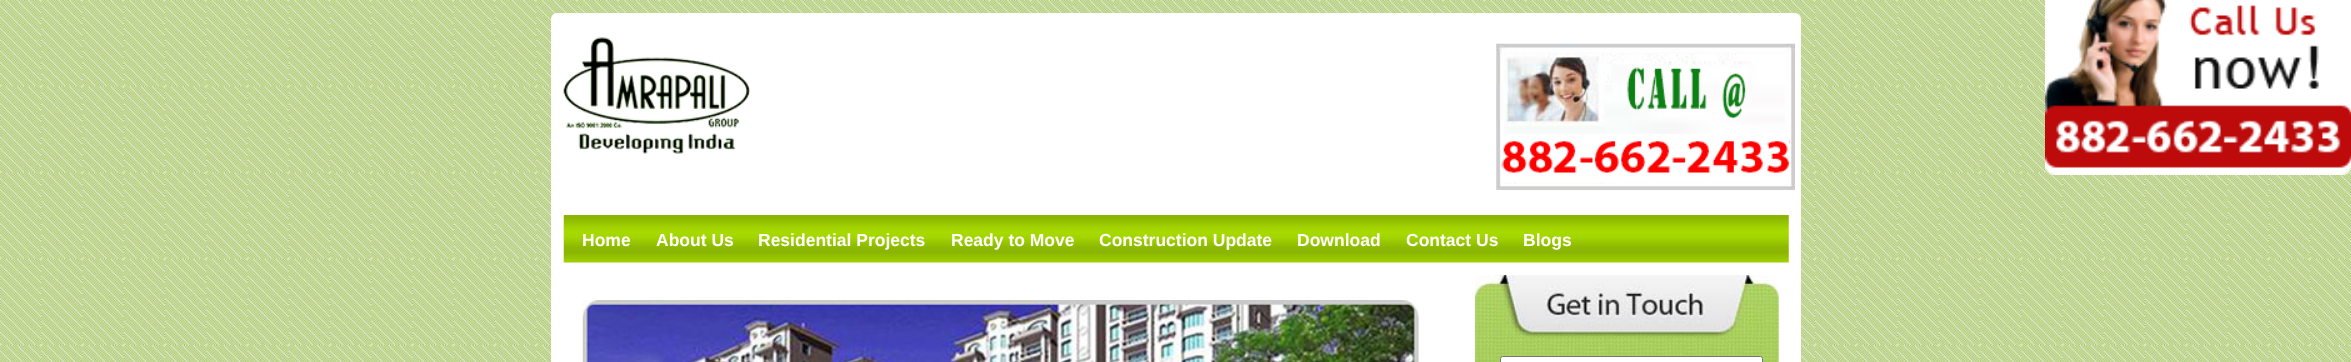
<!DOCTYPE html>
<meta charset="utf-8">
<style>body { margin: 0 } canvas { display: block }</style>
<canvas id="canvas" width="2351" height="362"></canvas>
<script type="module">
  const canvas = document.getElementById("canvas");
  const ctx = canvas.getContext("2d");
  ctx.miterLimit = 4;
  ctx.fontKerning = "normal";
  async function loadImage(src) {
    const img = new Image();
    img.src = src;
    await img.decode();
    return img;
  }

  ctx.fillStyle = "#ffffff";
  ctx.fillRect(0, 0, 2351, 362);
  ctx.drawImage(await loadImage("img1.png"), 0, 0, 2351, 362);
  ctx.drawImage(await loadImage("img2.png"), 2045, 0, 306, 175);
  ctx.beginPath();
  ctx.roundRect(551, 13, 1250, 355, 6);
  ctx.fill();
  ctx.drawImage(await loadImage("img3.png"), 563, 37, 187, 117);
  ctx.drawImage(await loadImage("img4.png"), 1496, 43, 299, 147);
  ctx.drawImage(await loadImage("img5.png"), 563, 215, 1226, 48);
  ctx.font = "bold 17.5px Liberation Sans";
  ctx.fillText("Home", 582, 246);
  ctx.fillText("About Us", 656, 246);
  ctx.fillText("Residential Projects", 758, 246);
  ctx.fillText("Ready to Move", 951, 246);
  ctx.fillText("Construction Update", 1099, 246);
  ctx.fillText("Download", 1297, 246);
  ctx.fillText("Contact Us", 1406, 246);
  ctx.fillText("Blogs", 1523, 246);
  ctx.drawImage(await loadImage("img6.png"), 582, 300, 837, 62);
  ctx.drawImage(await loadImage("img7.png"), 1475, 275, 304, 87);
  ctx.beginPath();
  ctx.roundRect(1500.5, 356.5, 262, 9, 2);
  ctx.fill();
  ctx.strokeStyle = "#767676";
  ctx.stroke();
</script>
